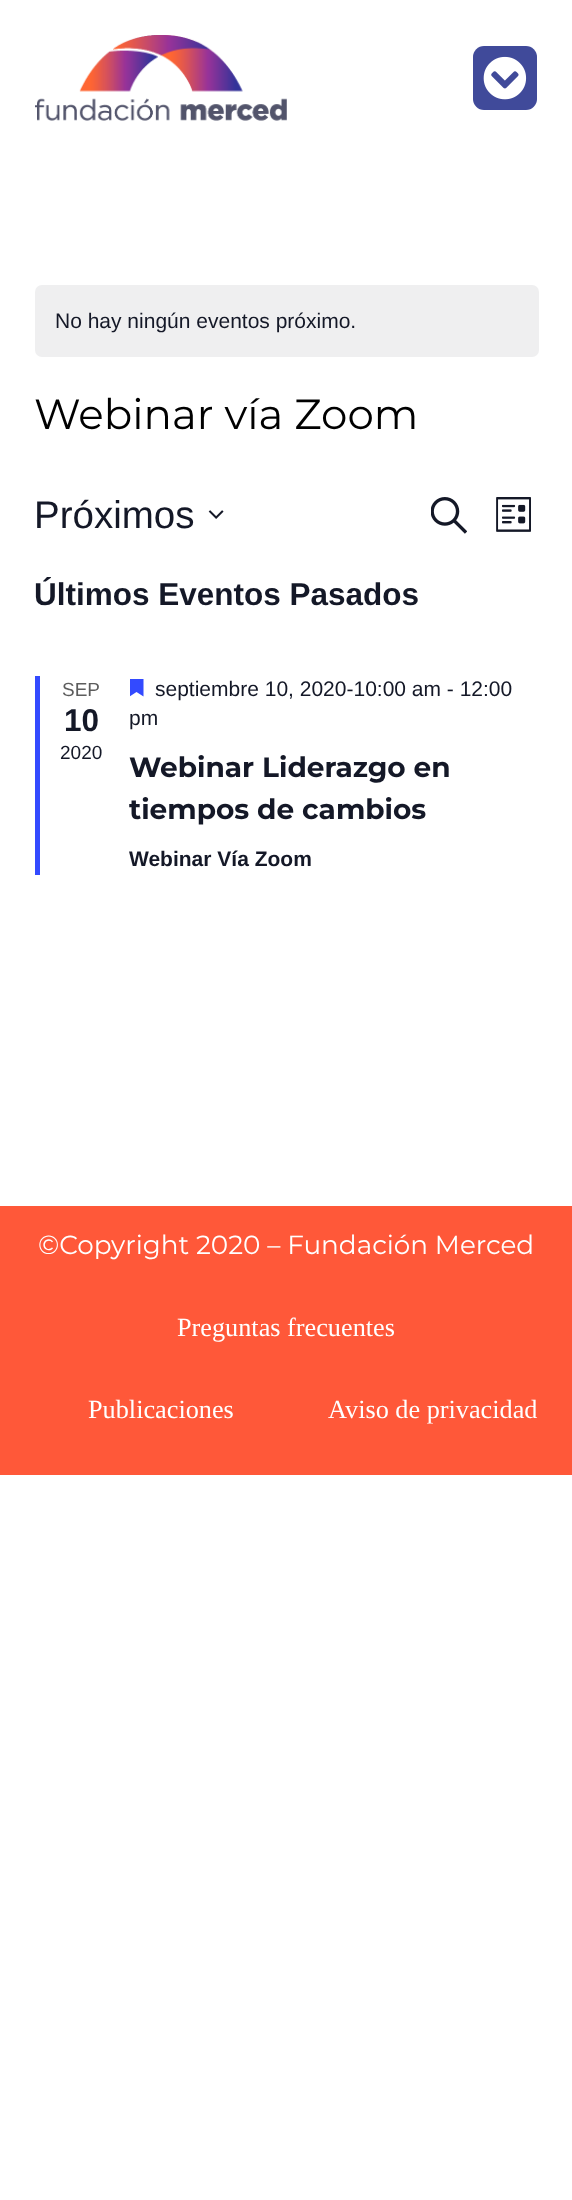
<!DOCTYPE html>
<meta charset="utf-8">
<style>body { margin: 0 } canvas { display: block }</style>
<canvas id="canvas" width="572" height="2200"></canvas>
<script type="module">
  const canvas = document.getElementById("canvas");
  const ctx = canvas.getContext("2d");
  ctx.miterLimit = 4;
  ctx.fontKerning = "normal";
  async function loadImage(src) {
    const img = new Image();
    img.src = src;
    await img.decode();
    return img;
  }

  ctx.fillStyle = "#ffffff";
  ctx.fillRect(0, 0, 572, 2200);
  ctx.drawImage(await loadImage("img1.png"), 35, 35, 252, 86);
  ctx.fillStyle = "#404a9a";
  ctx.beginPath();
  ctx.roundRect(473, 46, 64, 64, 11);
  ctx.fill();
  ctx.drawImage(await loadImage("img2.png"), 483, 56, 44, 44);
  ctx.fillStyle = "#efeff0";
  ctx.beginPath();
  ctx.roundRect(35, 285, 504, 72, 7);
  ctx.fill();
  ctx.font = "21px Liberation Sans";
  ctx.fillStyle = "#141827";
  ctx.fillText("No hay ningún eventos próximo.", 55, 328);
  ctx.font = "42px Montserrat";
  ctx.fillStyle = "#000000";
  ctx.fillText("Webinar vía Zoom", 34, 429);
  ctx.font = "38.5px Liberation Sans";
  ctx.fillStyle = "#141827";
  ctx.fillText("Próximos", 34, 528);
  ctx.drawImage(await loadImage("img3.png"), 208, 510, 16, 9);
  ctx.drawImage(await loadImage("img4.png"), 431, 497, 36, 37);
  ctx.drawImage(await loadImage("img5.png"), 496, 497, 35, 35);
  ctx.font = "bold 31.5px Liberation Sans";
  ctx.fillText("Últimos Eventos Pasados", 34, 605);
  ctx.fillStyle = "#334aff";
  ctx.fillRect(35, 676, 5, 199);
  ctx.font = "19px Liberation Sans";
  ctx.fillStyle = "#5d5d5d";
  ctx.fillText("SEP", 62, 696);
  ctx.font = "bold 31.5px Liberation Sans";
  ctx.fillStyle = "#141827";
  ctx.fillText("10", 64, 731);
  ctx.font = "19px Liberation Sans";
  ctx.fillText("2020", 60, 759);
  ctx.save();
  ctx.beginPath();
  ctx.rect(130, 679, 14, 18);
  ctx.clip();
  ctx.fillStyle = "#334aff";
  ctx.beginPath();
  ctx.moveTo(129.5, 679);
  ctx.lineTo(143.5, 679);
  ctx.lineTo(143.5, 696.5);
  ctx.lineTo(136.5, 692);
  ctx.lineTo(129.5, 696.5);
  ctx.closePath();
  ctx.fill("evenodd");
  ctx.restore();
  ctx.font = "21px Liberation Sans";
  ctx.fillText("septiembre 10, 2020-10:00 am - 12:00", 155, 696);
  ctx.fillText("pm", 129, 725);
  ctx.font = "bold 28px Montserrat";
  ctx.fillText("Webinar Liderazgo en", 129, 777);
  ctx.fillText("tiempos de cambios", 129, 819);
  ctx.font = "bold 21px Liberation Sans";
  ctx.fillText("Webinar Vía Zoom", 129, 866);
  ctx.fillStyle = "#ff5839";
  ctx.fillRect(0, 1206, 572, 269);
  ctx.font = "26.25px Montserrat";
  ctx.fillStyle = "#ffffff";
  ctx.fillText("©Copyright 2020 – Fundación Merced", 38, 1254);
  ctx.font = "26.25px Liberation Serif";
  ctx.fillText("Preguntas frecuentes", 177, 1336);
  ctx.fillText("Publicaciones", 88, 1418);
  ctx.fillText("Aviso de privacidad", 328, 1418);
</script>
